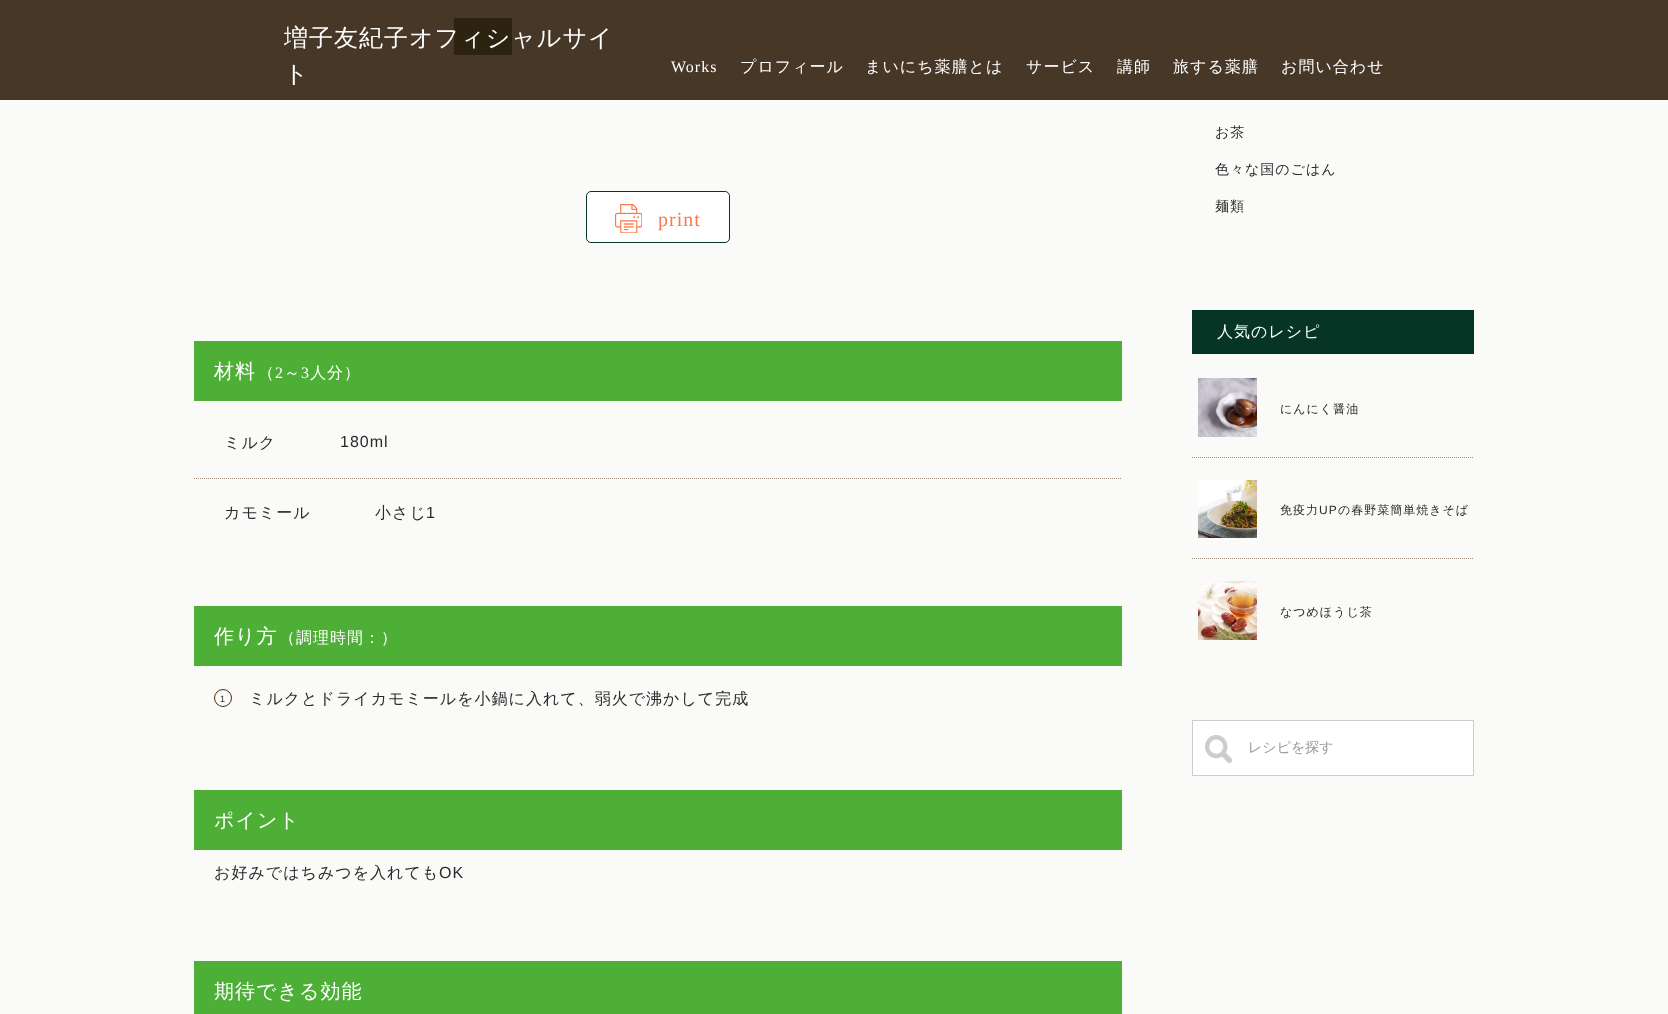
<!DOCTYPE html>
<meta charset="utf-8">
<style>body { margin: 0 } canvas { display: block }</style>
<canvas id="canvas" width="1668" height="1014"></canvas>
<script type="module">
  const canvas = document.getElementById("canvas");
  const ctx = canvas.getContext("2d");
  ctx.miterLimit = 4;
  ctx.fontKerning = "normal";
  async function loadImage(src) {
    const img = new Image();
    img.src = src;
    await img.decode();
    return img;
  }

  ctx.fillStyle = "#fafaf8";
  ctx.fillRect(0, 0, 1668, 1014);
  ctx.fillStyle = "#073525";
  ctx.fillRect(454, 18, 58, 37);
  ctx.fillStyle = "rgba(50, 33, 16, 0.9)";
  ctx.fillRect(0, 0, 1668, 100);
  ctx.letterSpacing = "1px";
  ctx.font = "500 24px WenQuanYi Zen Hei";
  ctx.fillStyle = "#ffffff";
  ctx.fillText("増子友紀子オフィシャルサイ", 284, 46);
  ctx.fillText("ト", 284, 82);
  ctx.font = "16px Liberation Serif";
  ctx.fillText("Works", 671, 72);
  ctx.font = "500 16px WenQuanYi Zen Hei";
  ctx.fillText("プロフィール", 740, 72);
  ctx.fillText("まいにち薬膳とは", 865, 72);
  ctx.fillText("サービス", 1026, 72);
  ctx.fillText("講師", 1117, 72);
  ctx.fillText("旅する薬膳", 1173, 72);
  ctx.fillText("お問い合わせ", 1281, 72);
  ctx.beginPath();
  ctx.roundRect(586.5, 191.5, 143, 51, 4.5);
  ctx.fill();
  ctx.strokeStyle = "#073525";
  ctx.stroke();
  ctx.drawImage(await loadImage("img1.png"), 615, 204, 27, 29);
  ctx.font = "20px Liberation Serif";
  ctx.fillStyle = "#fa794c";
  ctx.fillText("print", 658, 226);
  ctx.fillStyle = "#4daf36";
  ctx.fillRect(194, 341, 928, 60);
  ctx.font = "500 20px WenQuanYi Zen Hei";
  ctx.fillStyle = "#ffffff";
  ctx.fillText("材料", 214, 378);
  ctx.font = "500 16px WenQuanYi Zen Hei";
  ctx.fillText("（", 258, 378);
  ctx.font = "16px Liberation Serif";
  ctx.fillText("2", 275, 378);
  ctx.font = "500 16px WenQuanYi Zen Hei";
  ctx.fillText("～", 284, 378);
  ctx.font = "16px Liberation Serif";
  ctx.fillText("3", 301, 378);
  ctx.font = "500 16px WenQuanYi Zen Hei";
  ctx.fillText("人分）", 310, 378);
  ctx.beginPath();
  ctx.moveTo(194, 478.5);
  ctx.lineTo(1122, 478.5);
  ctx.strokeStyle = "#9f907b";
  ctx.setLineDash([1, 1]);
  ctx.stroke();
  ctx.fillStyle = "#2b2b2b";
  ctx.fillText("ミルク", 224, 448);
  ctx.font = "16px Liberation Sans";
  ctx.fillText("180ml", 340, 447);
  ctx.font = "500 16px WenQuanYi Zen Hei";
  ctx.fillText("カモミール", 224, 518);
  ctx.fillText("小さじ", 375, 518);
  ctx.font = "16px Liberation Sans";
  ctx.fillText("1", 426, 518);
  ctx.fillStyle = "#4daf36";
  ctx.fillRect(194, 606, 928, 60);
  ctx.font = "500 20px WenQuanYi Zen Hei";
  ctx.fillStyle = "#ffffff";
  ctx.fillText("作り方", 214, 643);
  ctx.font = "500 16px WenQuanYi Zen Hei";
  ctx.fillText("（調理時間：）", 279, 643);
  ctx.beginPath();
  ctx.arc(223, 698, 8.5, 0, Math.PI * 2);
  ctx.strokeStyle = "#4b2e07";
  ctx.setLineDash([]);
  ctx.stroke();
  ctx.letterSpacing = "0px";
  ctx.font = "9px Liberation Sans";
  ctx.fillStyle = "#2b2b2b";
  ctx.fillText("1", 220, 702);
  ctx.letterSpacing = "1px";
  ctx.font = "500 16px WenQuanYi Zen Hei";
  ctx.fillText("ミルクとドライカモミールを小鍋に入れて、弱火で沸かして完成", 249, 704);
  ctx.fillStyle = "#4daf36";
  ctx.fillRect(194, 790, 928, 60);
  ctx.font = "500 20px WenQuanYi Zen Hei";
  ctx.fillStyle = "#ffffff";
  ctx.fillText("ポイント", 214, 827);
  ctx.font = "500 16px WenQuanYi Zen Hei";
  ctx.fillStyle = "#2b2b2b";
  ctx.fillText("お好みではちみつを入れても", 214, 878);
  ctx.font = "16px Liberation Sans";
  ctx.fillText("OK", 439, 878);
  ctx.fillStyle = "#4daf36";
  ctx.fillRect(194, 961, 928, 53);
  ctx.font = "500 20px WenQuanYi Zen Hei";
  ctx.fillStyle = "#ffffff";
  ctx.fillText("期待できる効能", 214, 998);
  ctx.font = "500 14px WenQuanYi Zen Hei";
  ctx.fillStyle = "#2b2b2b";
  ctx.fillText("お茶", 1215, 137);
  ctx.fillText("色々な国のごはん", 1215, 174);
  ctx.fillText("麺類", 1215, 211);
  ctx.fillStyle = "#073525";
  ctx.fillRect(1192, 310, 282, 44);
  ctx.font = "500 16px WenQuanYi Zen Hei";
  ctx.fillStyle = "#ffffff";
  ctx.fillText("人気のレシピ", 1217, 337);
  ctx.beginPath();
  ctx.moveTo(1192, 457.5);
  ctx.lineTo(1474, 457.5);
  ctx.strokeStyle = "#9f907b";
  ctx.setLineDash([1, 1]);
  ctx.stroke();
  ctx.drawImage(await loadImage("img2.png"), 1198, 378, 59, 59);
  ctx.font = "500 12px WenQuanYi Zen Hei";
  ctx.fillStyle = "#2b2b2b";
  ctx.fillText("にんにく醤油", 1280, 413);
  ctx.beginPath();
  ctx.moveTo(1192, 558.5);
  ctx.lineTo(1474, 558.5);
  ctx.stroke();
  ctx.drawImage(await loadImage("img3.png"), 1198, 480, 59, 58);
  ctx.fillText("免疫力", 1280, 514);
  ctx.font = "12px Liberation Sans";
  ctx.fillText("UP", 1319, 514);
  ctx.font = "500 12px WenQuanYi Zen Hei";
  ctx.fillText("の春野菜簡単焼きそば", 1338, 514);
  ctx.drawImage(await loadImage("img4.png"), 1198, 581, 59, 59);
  ctx.fillText("なつめほうじ茶", 1280, 616);
  ctx.strokeStyle = "#cccccc";
  ctx.setLineDash([]);
  ctx.strokeRect(1192.5, 720.5, 281, 55);
  ctx.fillStyle = "#ffffff";
  ctx.fillRect(1193, 721, 280, 54);
  ctx.drawImage(await loadImage("img5.png"), 1205, 735, 27, 28);
  ctx.letterSpacing = "0px";
  ctx.font = "500 14px WenQuanYi Zen Hei";
  ctx.fillStyle = "#999999";
  ctx.fillText("レシピを探す", 1248, 752);
</script>
